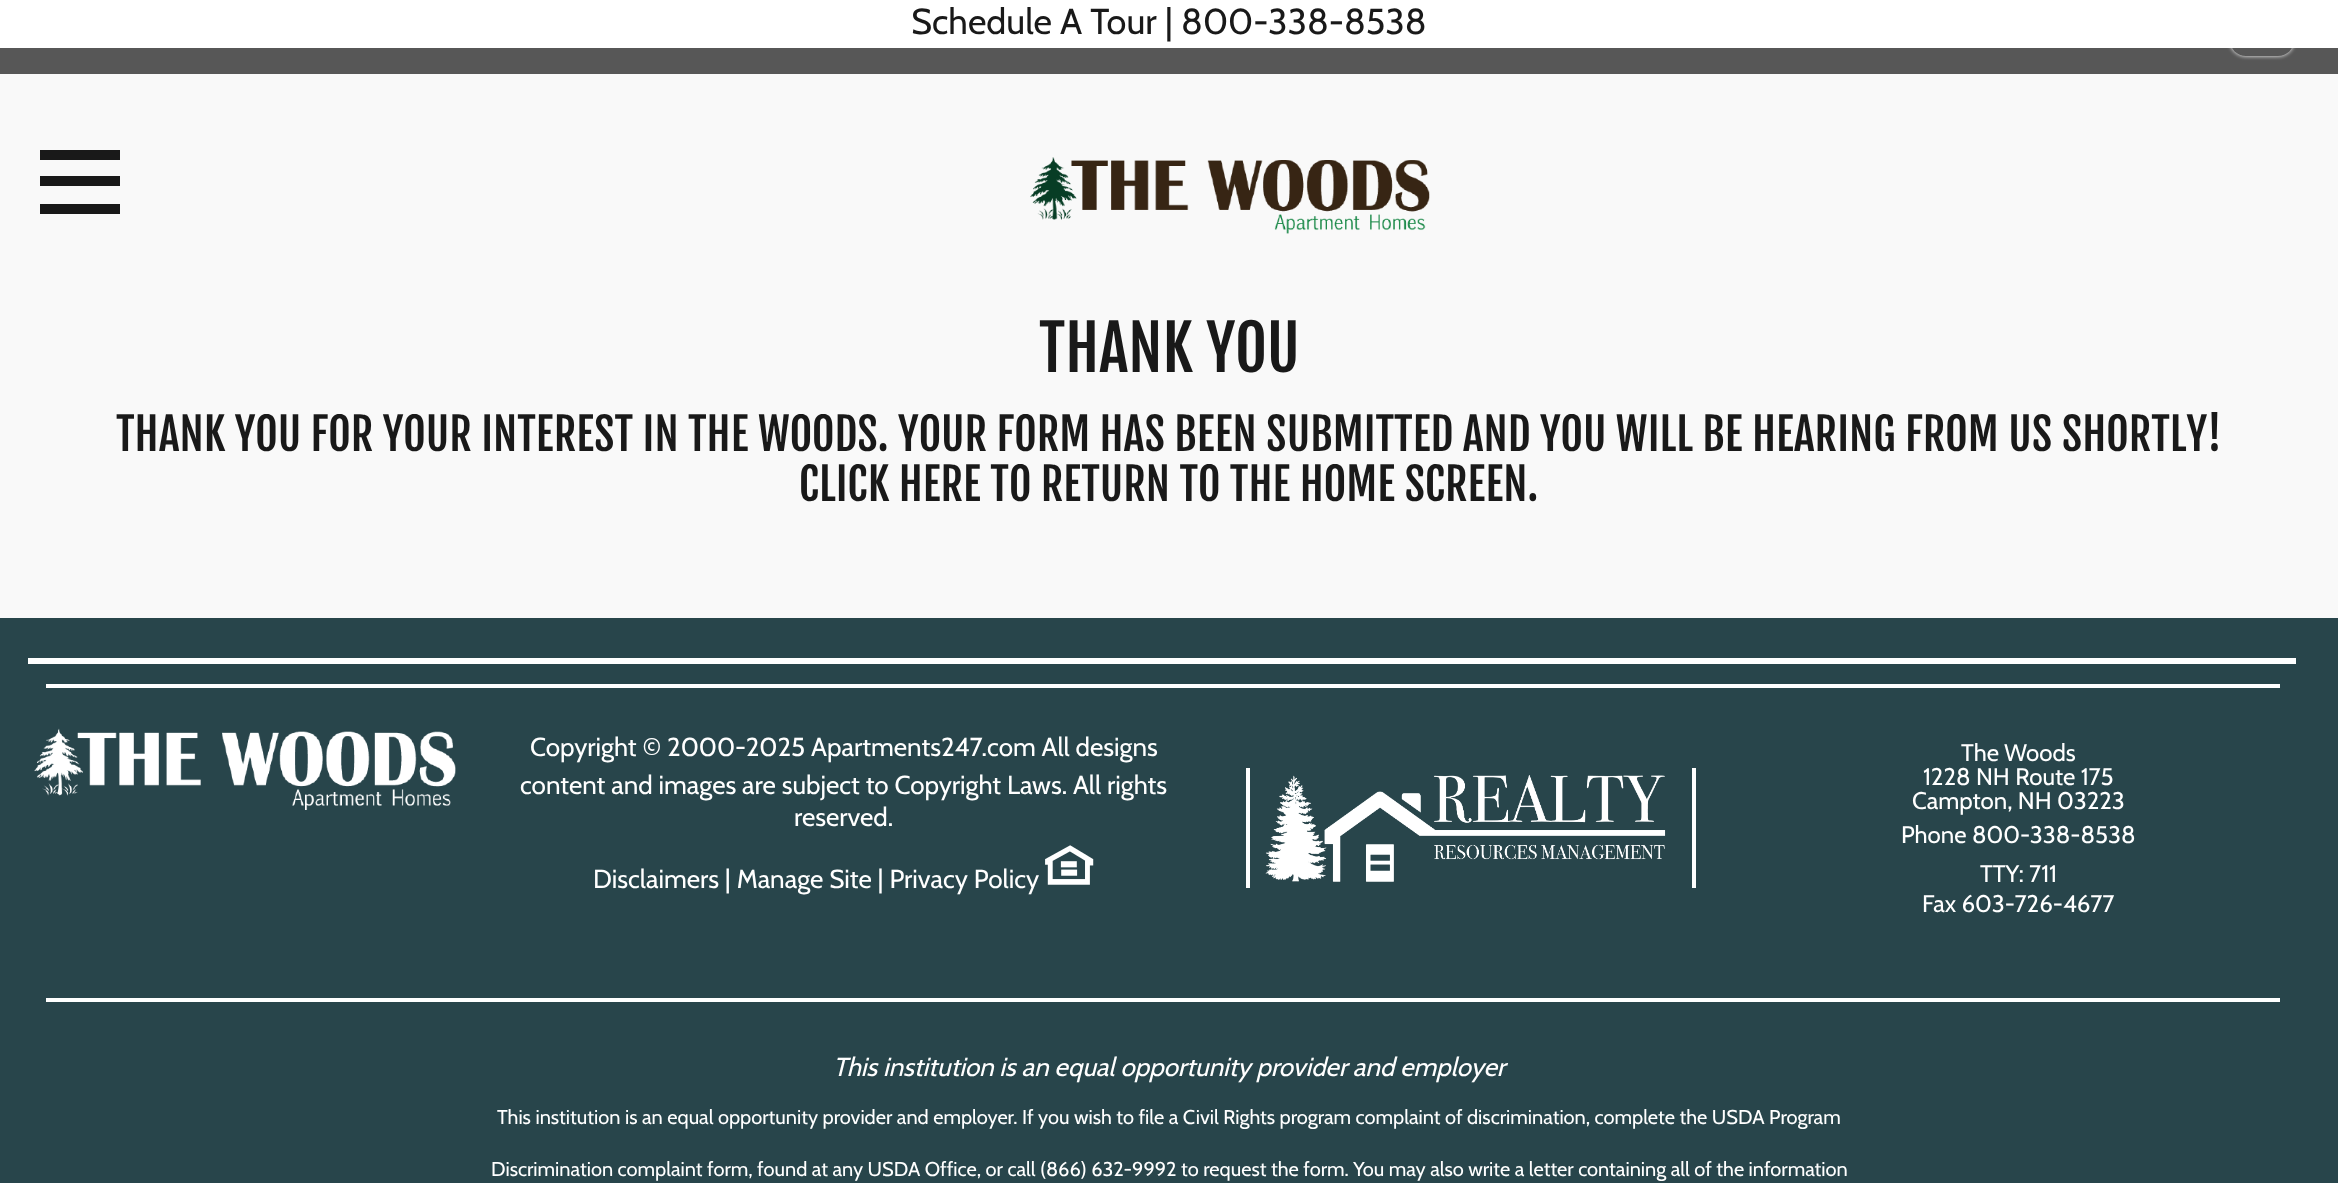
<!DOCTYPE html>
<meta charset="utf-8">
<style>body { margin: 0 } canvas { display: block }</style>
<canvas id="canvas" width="2338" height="1183"></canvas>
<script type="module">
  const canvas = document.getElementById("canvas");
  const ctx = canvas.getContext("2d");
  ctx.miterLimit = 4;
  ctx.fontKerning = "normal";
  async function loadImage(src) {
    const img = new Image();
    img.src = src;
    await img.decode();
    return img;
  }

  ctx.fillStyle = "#f9f9f9";
  ctx.fillRect(0, 0, 2338, 1183);
  ctx.fillStyle = "#575757";
  ctx.fillRect(0, 48, 2338, 26);
  ctx.save();
  ctx.beginPath();
  ctx.moveTo(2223, 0);
  ctx.lineTo(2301, 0);
  ctx.lineTo(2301, 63);
  ctx.lineTo(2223, 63);
  ctx.closePath();
  ctx.moveTo(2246, -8);
  ctx.lineTo(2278, -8);
  ctx.bezierCurveTo(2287, -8, 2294, -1, 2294, 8);
  ctx.lineTo(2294, 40);
  ctx.bezierCurveTo(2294, 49, 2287, 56, 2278, 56);
  ctx.lineTo(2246, 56);
  ctx.bezierCurveTo(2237, 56, 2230, 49, 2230, 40);
  ctx.lineTo(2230, 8);
  ctx.bezierCurveTo(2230, -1, 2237, -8, 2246, -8);
  ctx.closePath();
  ctx.clip("evenodd");
  ctx.fillStyle = "#ffffff";
  ctx.filter = "blur(2px)";
  ctx.beginPath();
  ctx.roundRect(2230, -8, 64, 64, 16);
  ctx.fill();
  ctx.filter = "none";
  ctx.restore();
  ctx.fillStyle = "#ffffff";
  ctx.fillRect(0, 0, 2338, 48);
  ctx.font = "36px Cabin";
  ctx.fillStyle = "#191919";
  ctx.fillText("Schedule A Tour | 800-338-8538", 911, 34);
  ctx.fillRect(40, 150, 80, 10);
  ctx.fillRect(40, 176, 80, 10);
  ctx.fillRect(40, 204, 80, 10);
  ctx.drawImage(await loadImage("img1.png"), 1030, 157, 400, 77);
  ctx.font = "62px Fjalla One";
  ctx.fillText("THANK YOU", 1039, 372);
  ctx.font = "44px Fjalla One";
  ctx.fillText("THANK YOU FOR YOUR INTEREST IN THE WOODS. YOUR FORM HAS BEEN SUBMITTED AND YOU WILL BE HEARING FROM US SHORTLY!", 116, 451);
  ctx.fillText("CLICK HERE TO RETURN TO THE HOME SCREEN.", 799, 501);
  ctx.fillStyle = "#28454b";
  ctx.fillRect(0, 618, 2338, 565);
  ctx.fillStyle = "#ffffff";
  ctx.fillRect(28, 658, 2268, 6);
  ctx.fillRect(46, 684, 2234, 4);
  ctx.drawImage(await loadImage("img2.png"), 34, 728, 422, 82);
  ctx.font = "26px Cabin";
  ctx.fillText("Copyright © 2000-2025 Apartments247.com All designs", 530, 756);
  ctx.fillText("content and images are subject to Copyright Laws. All rights", 520, 794);
  ctx.fillText("reserved.", 794, 826);
  ctx.fillText("Disclaimers | Manage Site | Privacy Policy", 593, 888);
  ctx.drawImage(await loadImage("img3.png"), 1045, 845, 49, 40);
  ctx.fillRect(1692, 768, 4, 120);
  ctx.fillRect(1246, 768, 4, 120);
  ctx.drawImage(await loadImage("img4.png"), 1265, 775, 401, 107);
  ctx.font = "24px Cabin";
  ctx.fillText("The Woods", 1961, 761);
  ctx.fillText("1228 NH Route 175", 1923, 785);
  ctx.fillText("Campton, NH 03223", 1912, 809);
  ctx.fillText("Phone 800-338-8538", 1901, 843);
  ctx.fillText("TTY: 711", 1980, 882);
  ctx.fillText("Fax 603-726-4677", 1922, 912);
  ctx.fillRect(46, 998, 2234, 4);
  ctx.font = "italic 26px Cabin";
  ctx.fillText("This institution is an equal opportunity provider and employer", 833, 1076);
  ctx.font = "20px Cabin";
  ctx.fillText("This institution is an equal opportunity provider and employer. If you wish to file a Civil Rights program complaint of discrimination, complete the USDA Program", 497, 1124);
  ctx.fillText("Discrimination complaint form, found at any USDA Office, or call (866) 632-9992 to request the form. You may also write a letter containing all of the information", 491, 1176);
</script>
